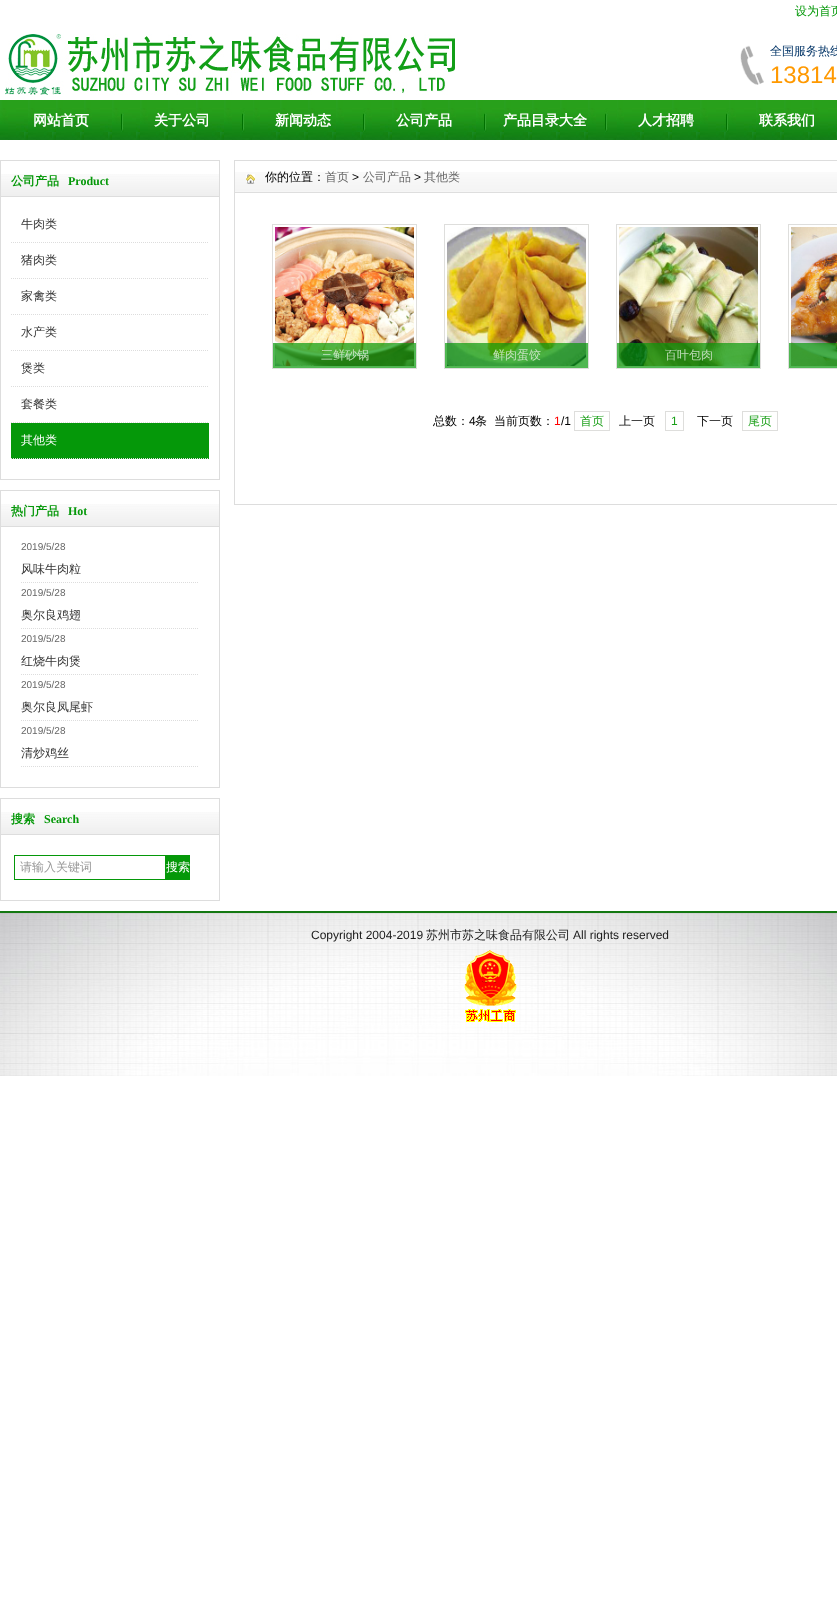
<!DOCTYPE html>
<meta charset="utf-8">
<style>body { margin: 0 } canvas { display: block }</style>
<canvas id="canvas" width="837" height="1620"></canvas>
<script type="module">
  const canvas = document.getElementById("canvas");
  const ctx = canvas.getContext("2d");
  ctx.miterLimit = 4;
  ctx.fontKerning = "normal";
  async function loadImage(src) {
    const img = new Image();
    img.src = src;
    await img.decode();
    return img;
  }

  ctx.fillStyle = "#ffffff";
  ctx.fillRect(0, 0, 837, 1620);
  ctx.font = "500 12px WenQuanYi Zen Hei";
  ctx.fillStyle = "#059809";
  ctx.fillText("设为首页", 795, 15);
  ctx.drawImage(await loadImage("img1.png"), 5, 34, 450, 61);
  ctx.drawImage(await loadImage("img2.png"), 740, 45, 24, 40);
  ctx.fillStyle = "#003366";
  ctx.fillText("全国服务热线", 770, 55);
  ctx.font = "24px Liberation Sans";
  ctx.fillStyle = "#ff9900";
  ctx.fillText("13814", 770, 83);
  ctx.drawImage(await loadImage("img3.png"), 0, 100, 837, 40);
  ctx.font = "bold 14px WenQuanYi Zen Hei";
  ctx.fillStyle = "#ffffff";
  ctx.fillText("网站首页", 33, 125);
  ctx.drawImage(await loadImage("img4.png"), 121, 113, 15, 19);
  ctx.fillText("关于公司", 154, 125);
  ctx.drawImage(await loadImage("img5.png"), 242, 100, 11, 38);
  ctx.fillText("新闻动态", 275, 125);
  ctx.drawImage(await loadImage("img6.png"), 363, 100, 3, 38);
  ctx.fillText("公司产品", 396, 125);
  ctx.drawImage(await loadImage("img4.png"), 484, 113, 15, 19);
  ctx.fillText("产品目录大全", 503, 125);
  ctx.drawImage(await loadImage("img7.png"), 605, 100, 12, 38);
  ctx.fillText("人才招聘", 638, 125);
  ctx.drawImage(await loadImage("img6.png"), 726, 100, 3, 38);
  ctx.fillText("联系我们", 759, 125);
  ctx.strokeStyle = "#dddddd";
  ctx.strokeRect(0.5, 160.5, 219, 319);
  ctx.drawImage(await loadImage("img8.png"), 1, 174, 218, 22);
  ctx.fillStyle = "#dddddd";
  ctx.fillRect(1, 196, 218, 1);
  ctx.font = "bold 12px WenQuanYi Zen Hei";
  ctx.fillStyle = "#059809";
  ctx.fillText("公司产品", 11, 185);
  ctx.font = "bold 12px Liberation Serif";
  ctx.fillText("Product", 68, 185);
  ctx.beginPath();
  ctx.moveTo(11, 242.5);
  ctx.lineTo(209, 242.5);
  ctx.setLineDash([1, 1]);
  ctx.stroke();
  ctx.font = "500 12px WenQuanYi Zen Hei";
  ctx.fillStyle = "#333333";
  ctx.fillText("牛肉类", 21, 228);
  ctx.beginPath();
  ctx.moveTo(11, 278.5);
  ctx.lineTo(209, 278.5);
  ctx.stroke();
  ctx.fillText("猪肉类", 21, 264);
  ctx.beginPath();
  ctx.moveTo(11, 314.5);
  ctx.lineTo(209, 314.5);
  ctx.stroke();
  ctx.fillText("家禽类", 21, 300);
  ctx.beginPath();
  ctx.moveTo(11, 350.5);
  ctx.lineTo(209, 350.5);
  ctx.stroke();
  ctx.fillText("水产类", 21, 336);
  ctx.beginPath();
  ctx.moveTo(11, 386.5);
  ctx.lineTo(209, 386.5);
  ctx.stroke();
  ctx.fillText("煲类", 21, 372);
  ctx.beginPath();
  ctx.moveTo(11, 422.5);
  ctx.lineTo(209, 422.5);
  ctx.stroke();
  ctx.fillText("套餐类", 21, 408);
  ctx.fillStyle = "#059809";
  ctx.fillRect(11, 423, 198, 36);
  ctx.beginPath();
  ctx.moveTo(11, 458.5);
  ctx.lineTo(209, 458.5);
  ctx.stroke();
  ctx.fillStyle = "#ffffff";
  ctx.fillText("其他类", 21, 444);
  ctx.setLineDash([]);
  ctx.strokeRect(0.5, 490.5, 219, 297);
  ctx.drawImage(await loadImage("img8.png"), 1, 504, 218, 22);
  ctx.fillStyle = "#dddddd";
  ctx.fillRect(1, 526, 218, 1);
  ctx.font = "bold 12px WenQuanYi Zen Hei";
  ctx.fillStyle = "#059809";
  ctx.fillText("热门产品", 11, 515);
  ctx.font = "bold 12px Liberation Serif";
  ctx.fillText("Hot", 68, 515);
  ctx.font = "10px Liberation Sans";
  ctx.fillStyle = "#666666";
  ctx.fillText("2019/5/28", 21, 550);
  ctx.beginPath();
  ctx.moveTo(21, 582.5);
  ctx.lineTo(199, 582.5);
  ctx.setLineDash([1, 1]);
  ctx.stroke();
  ctx.font = "500 12px WenQuanYi Zen Hei";
  ctx.fillStyle = "#333333";
  ctx.fillText("风味牛肉粒", 21, 573);
  ctx.font = "10px Liberation Sans";
  ctx.fillStyle = "#666666";
  ctx.fillText("2019/5/28", 21, 596);
  ctx.beginPath();
  ctx.moveTo(21, 628.5);
  ctx.lineTo(199, 628.5);
  ctx.stroke();
  ctx.font = "500 12px WenQuanYi Zen Hei";
  ctx.fillStyle = "#333333";
  ctx.fillText("奥尔良鸡翅", 21, 619);
  ctx.font = "10px Liberation Sans";
  ctx.fillStyle = "#666666";
  ctx.fillText("2019/5/28", 21, 642);
  ctx.beginPath();
  ctx.moveTo(21, 674.5);
  ctx.lineTo(199, 674.5);
  ctx.stroke();
  ctx.font = "500 12px WenQuanYi Zen Hei";
  ctx.fillStyle = "#333333";
  ctx.fillText("红烧牛肉煲", 21, 665);
  ctx.font = "10px Liberation Sans";
  ctx.fillStyle = "#666666";
  ctx.fillText("2019/5/28", 21, 688);
  ctx.beginPath();
  ctx.moveTo(21, 720.5);
  ctx.lineTo(199, 720.5);
  ctx.stroke();
  ctx.font = "500 12px WenQuanYi Zen Hei";
  ctx.fillStyle = "#333333";
  ctx.fillText("奥尔良凤尾虾", 21, 711);
  ctx.font = "10px Liberation Sans";
  ctx.fillStyle = "#666666";
  ctx.fillText("2019/5/28", 21, 734);
  ctx.beginPath();
  ctx.moveTo(21, 766.5);
  ctx.lineTo(199, 766.5);
  ctx.stroke();
  ctx.font = "500 12px WenQuanYi Zen Hei";
  ctx.fillStyle = "#333333";
  ctx.fillText("清炒鸡丝", 21, 757);
  ctx.setLineDash([]);
  ctx.strokeRect(0.5, 798.5, 219, 102);
  ctx.drawImage(await loadImage("img8.png"), 1, 812, 218, 22);
  ctx.fillStyle = "#dddddd";
  ctx.fillRect(1, 834, 218, 1);
  ctx.font = "bold 12px WenQuanYi Zen Hei";
  ctx.fillStyle = "#059809";
  ctx.fillText("搜索", 11, 823);
  ctx.font = "bold 12px Liberation Serif";
  ctx.fillText("Search", 44, 823);
  ctx.strokeStyle = "#059809";
  ctx.strokeRect(14.5, 855.5, 151, 24);
  ctx.font = "500 12px WenQuanYi Zen Hei";
  ctx.fillStyle = "#999999";
  ctx.fillText("请输入关键词", 20, 871);
  ctx.fillStyle = "#059809";
  ctx.fillRect(166, 855, 24, 25);
  ctx.fillStyle = "#ffffff";
  ctx.fillText("搜索", 166, 871);
  ctx.strokeStyle = "#dddddd";
  ctx.strokeRect(234.5, 160.5, 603, 344);
  ctx.drawImage(await loadImage("img9.png"), 235, 172, 602, 21);
  ctx.drawImage(await loadImage("img10.png"), 246, 174, 9, 10);
  ctx.fillStyle = "#000000";
  ctx.fillText("你的位置：", 265, 181);
  ctx.fillStyle = "#666666";
  ctx.fillText("首页", 325, 181);
  ctx.font = "12px Liberation Sans";
  ctx.fillStyle = "#000000";
  ctx.fillText(">", 352, 181);
  ctx.font = "500 12px WenQuanYi Zen Hei";
  ctx.fillStyle = "#666666";
  ctx.fillText("公司产品", 363, 181);
  ctx.font = "12px Liberation Sans";
  ctx.fillStyle = "#000000";
  ctx.fillText(">", 414, 181);
  ctx.font = "500 12px WenQuanYi Zen Hei";
  ctx.fillStyle = "#666666";
  ctx.fillText("其他类", 424, 181);
  ctx.strokeStyle = "#dededc";
  ctx.strokeRect(272.5, 224.5, 144, 144);
  ctx.drawImage(await loadImage("img11.png"), 275, 227, 139, 139);
  ctx.fillStyle = "rgba(5, 152, 9, 0.7)";
  ctx.fillRect(273, 343, 143, 25);
  ctx.fillStyle = "#c5e2c1";
  ctx.fillText("三鲜砂锅", 321, 359);
  ctx.strokeRect(444.5, 224.5, 144, 144);
  ctx.drawImage(await loadImage("img12.png"), 447, 227, 139, 139);
  ctx.fillStyle = "rgba(5, 152, 9, 0.7)";
  ctx.fillRect(445, 343, 143, 25);
  ctx.fillStyle = "#c5e2c1";
  ctx.fillText("鲜肉蛋饺", 493, 359);
  ctx.strokeRect(616.5, 224.5, 144, 144);
  ctx.drawImage(await loadImage("img13.png"), 619, 227, 139, 139);
  ctx.fillStyle = "rgba(5, 152, 9, 0.7)";
  ctx.fillRect(617, 343, 143, 25);
  ctx.fillStyle = "#bfdcb9";
  ctx.fillText("百叶包肉", 665, 359);
  ctx.strokeRect(788.5, 224.5, 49, 144);
  ctx.drawImage(await loadImage("img14.png"), 791, 227, 46, 139);
  ctx.fillStyle = "rgba(5, 152, 9, 0.7)";
  ctx.fillRect(789, 343, 48, 25);
  ctx.fillStyle = "#000000";
  ctx.fillText("总数：", 433, 425);
  ctx.font = "12px Liberation Sans";
  ctx.fillText("4", 469, 425);
  ctx.font = "500 12px WenQuanYi Zen Hei";
  ctx.fillText("条", 475, 425);
  ctx.fillText("当前页数：", 494, 425);
  ctx.font = "12px Liberation Sans";
  ctx.fillStyle = "#ff0000";
  ctx.fillText("1", 554, 425);
  ctx.fillStyle = "#000000";
  ctx.fillText("/1", 561, 425);
  ctx.strokeRect(574.5, 411.5, 35, 19);
  ctx.font = "500 12px WenQuanYi Zen Hei";
  ctx.fillStyle = "#1ca01a";
  ctx.fillText("首页", 580, 425);
  ctx.fillStyle = "#000000";
  ctx.fillText("上一页", 619, 425);
  ctx.strokeRect(665.5, 411.5, 18, 19);
  ctx.font = "12px Liberation Sans";
  ctx.fillStyle = "#1ca01a";
  ctx.fillText("1", 671, 425);
  ctx.font = "500 12px WenQuanYi Zen Hei";
  ctx.fillStyle = "#000000";
  ctx.fillText("下一页", 697, 425);
  ctx.strokeRect(742.5, 411.5, 35, 19);
  ctx.fillStyle = "#1ca01a";
  ctx.fillText("尾页", 748, 425);
  ctx.drawImage(await loadImage("img15.png"), 0, 913, 837, 163);
  ctx.fillStyle = "#137811";
  ctx.fillRect(0, 911, 837, 2);
  ctx.font = "12px Liberation Sans";
  ctx.fillStyle = "#191919";
  ctx.fillText("Copyright 2004-2019", 311, 939);
  ctx.font = "500 12px WenQuanYi Zen Hei";
  ctx.fillText("苏州市苏之味食品有限公司", 426, 939);
  ctx.font = "12px Liberation Sans";
  ctx.fillText("All rights reserved", 573, 939);
  ctx.drawImage(await loadImage("img16.png"), 464, 950, 53, 72);
</script>
